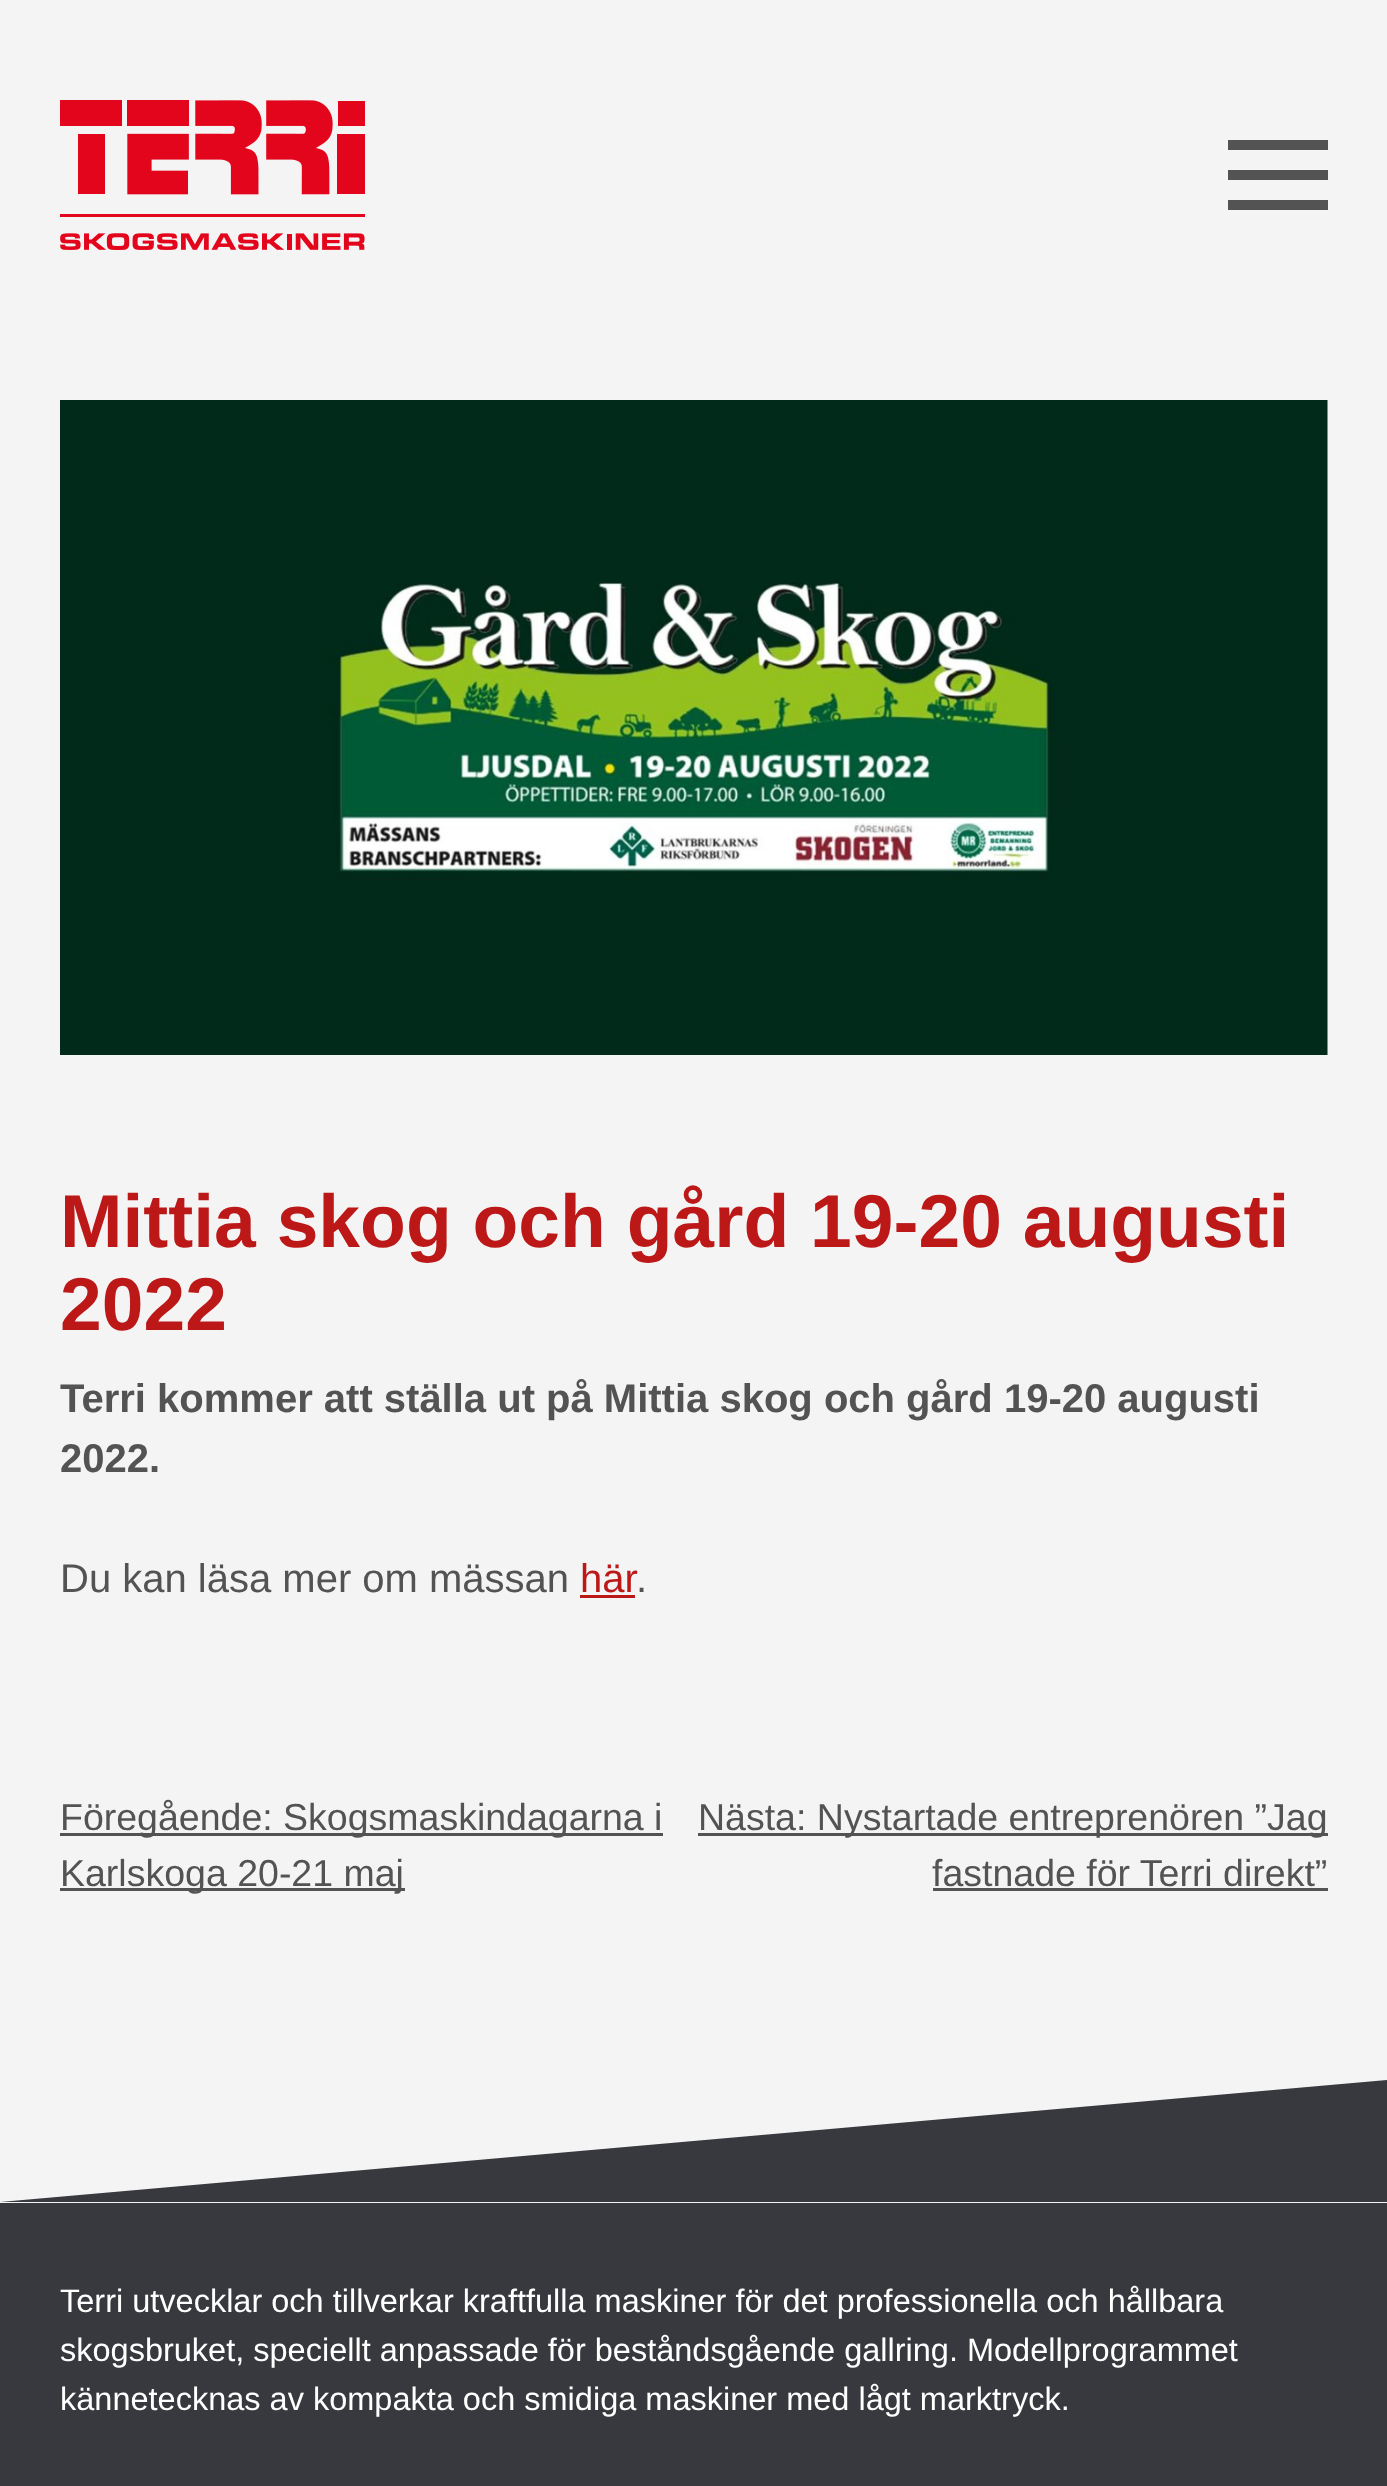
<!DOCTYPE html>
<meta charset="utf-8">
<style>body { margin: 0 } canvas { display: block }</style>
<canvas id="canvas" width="1387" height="2486"></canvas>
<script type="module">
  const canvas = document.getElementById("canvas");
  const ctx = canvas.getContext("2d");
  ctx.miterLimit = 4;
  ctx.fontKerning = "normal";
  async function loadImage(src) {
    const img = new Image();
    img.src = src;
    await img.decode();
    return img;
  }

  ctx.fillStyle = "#f4f4f4";
  ctx.fillRect(0, 0, 1387, 2486);
  ctx.drawImage(await loadImage("img1.png"), 60, 100, 305, 150);
  ctx.fillStyle = "#535353";
  ctx.fillRect(1228, 140, 100, 10);
  ctx.fillRect(1228, 170, 100, 10);
  ctx.fillRect(1228, 200, 100, 10);
  ctx.drawImage(await loadImage("img2.png"), 60, 400, 1268, 655);
  ctx.font = "bold 75px Liberation Sans";
  ctx.fillStyle = "#bc1818";
  ctx.fillText("Mittia skog och gård 19-20 augusti", 60, 1247);
  ctx.fillText("2022", 60, 1330);
  ctx.font = "bold 40px Liberation Sans";
  ctx.fillStyle = "#535353";
  ctx.fillText("Terri kommer att ställa ut på Mittia skog och gård 19-20 augusti", 60, 1412);
  ctx.fillText("2022.", 60, 1472);
  ctx.font = "40px Liberation Sans";
  ctx.fillText("Du kan läsa mer om mässan", 60, 1592);
  ctx.fillStyle = "#bc1818";
  ctx.fillText("här", 580, 1592);
  ctx.fillRect(580, 1595, 55, 3);
  ctx.fillStyle = "#535353";
  ctx.fillText(".", 636, 1592);
  ctx.fillRect(60, 1833, 603, 3);
  ctx.font = "37.5px Liberation Sans";
  ctx.fillText("Föregående: Skogsmaskindagarna i", 60, 1830);
  ctx.fillRect(60, 1888, 345, 3);
  ctx.fillText("Karlskoga 20-21 maj", 60, 1886);
  ctx.fillRect(698, 1833, 630, 3);
  ctx.fillText("Nästa: Nystartade entreprenören ”Jag", 698, 1830);
  ctx.fillText("fastnade för Terri direkt”", 932, 1886);
  ctx.fillRect(933, 1888, 395, 3);
  ctx.fillStyle = "#38393e";
  ctx.fillRect(0, 2203, 1387, 283);
  ctx.beginPath();
  ctx.moveTo(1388, 2080);
  ctx.lineTo(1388, 2202);
  ctx.lineTo(0, 2202);
  ctx.closePath();
  ctx.fill();
  ctx.font = "32.5px Liberation Sans";
  ctx.fillStyle = "#ffffff";
  ctx.fillText("Terri utvecklar och tillverkar kraftfulla maskiner för det professionella och hållbara", 60, 2312);
  ctx.fillText("skogsbruket, speciellt anpassade för beståndsgående gallring. Modellprogrammet", 60, 2361);
  ctx.fillText("kännetecknas av kompakta och smidiga maskiner med lågt marktryck.", 60, 2410);
</script>
